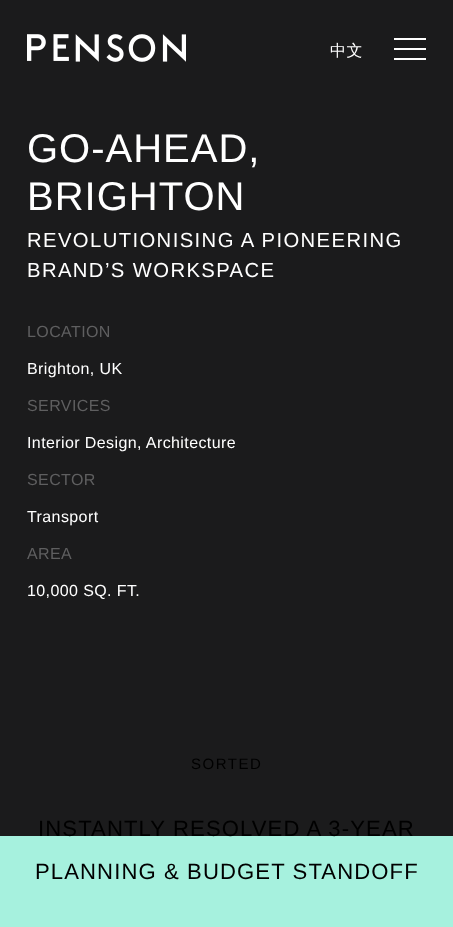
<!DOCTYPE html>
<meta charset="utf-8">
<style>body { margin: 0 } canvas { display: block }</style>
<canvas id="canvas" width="453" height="927"></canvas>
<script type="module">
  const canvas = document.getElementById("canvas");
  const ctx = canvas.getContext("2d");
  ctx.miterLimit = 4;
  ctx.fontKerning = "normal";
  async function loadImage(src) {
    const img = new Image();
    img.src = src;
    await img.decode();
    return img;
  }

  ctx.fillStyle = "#1b1b1c";
  ctx.fillRect(0, 0, 453, 927);
  ctx.drawImage(await loadImage("img1.png"), 27, 34, 159, 28);
  ctx.letterSpacing = "0.4px";
  ctx.font = "500 16px WenQuanYi Zen Hei";
  ctx.fillStyle = "#ffffff";
  ctx.fillText("中文", 330, 56);
  ctx.fillRect(394, 48, 32, 2);
  ctx.fillRect(394, 38, 32, 2);
  ctx.fillRect(394, 58, 32, 2);
  ctx.fillStyle = "#a6f1de";
  ctx.fillRect(0, 836, 453, 91);
  ctx.letterSpacing = "1px";
  ctx.font = "40px Liberation Sans";
  ctx.fillStyle = "#ffffff";
  ctx.fillText("GO-AHEAD,", 27, 162);
  ctx.fillText("BRIGHTON", 27, 210);
  ctx.letterSpacing = "1.4px";
  ctx.font = "20.25px Liberation Sans";
  ctx.fillText("REVOLUTIONISING A PIONEERING", 27, 247);
  ctx.fillText("BRAND’S WORKSPACE", 27, 277);
  ctx.letterSpacing = "0.4px";
  ctx.font = "16px Liberation Sans";
  ctx.fillStyle = "#5f5f60";
  ctx.fillText("LOCATION", 27, 337);
  ctx.fillStyle = "#ffffff";
  ctx.fillText("Brighton, UK", 27, 374);
  ctx.fillStyle = "#5f5f60";
  ctx.fillText("SERVICES", 27, 411);
  ctx.fillStyle = "#ffffff";
  ctx.fillText("Interior Design, Architecture", 27, 448);
  ctx.fillStyle = "#5f5f60";
  ctx.fillText("SECTOR", 27, 485);
  ctx.fillStyle = "#ffffff";
  ctx.fillText("Transport", 27, 522);
  ctx.fillStyle = "#5f5f60";
  ctx.fillText("AREA", 27, 559);
  ctx.fillStyle = "#ffffff";
  ctx.fillText("10,000 SQ. FT.", 27, 596);
  ctx.letterSpacing = "1.5px";
  ctx.font = "15px Liberation Sans";
  ctx.fillStyle = "#000000";
  ctx.fillText("SORTED", 191, 769);
  ctx.letterSpacing = "1.1px";
  ctx.font = "22.1px Liberation Sans";
  ctx.fillText("INSTANTLY RESOLVED A 3-YEAR", 38, 836);
  ctx.fillText("PLANNING & BUDGET STANDOFF", 35, 879);
</script>
